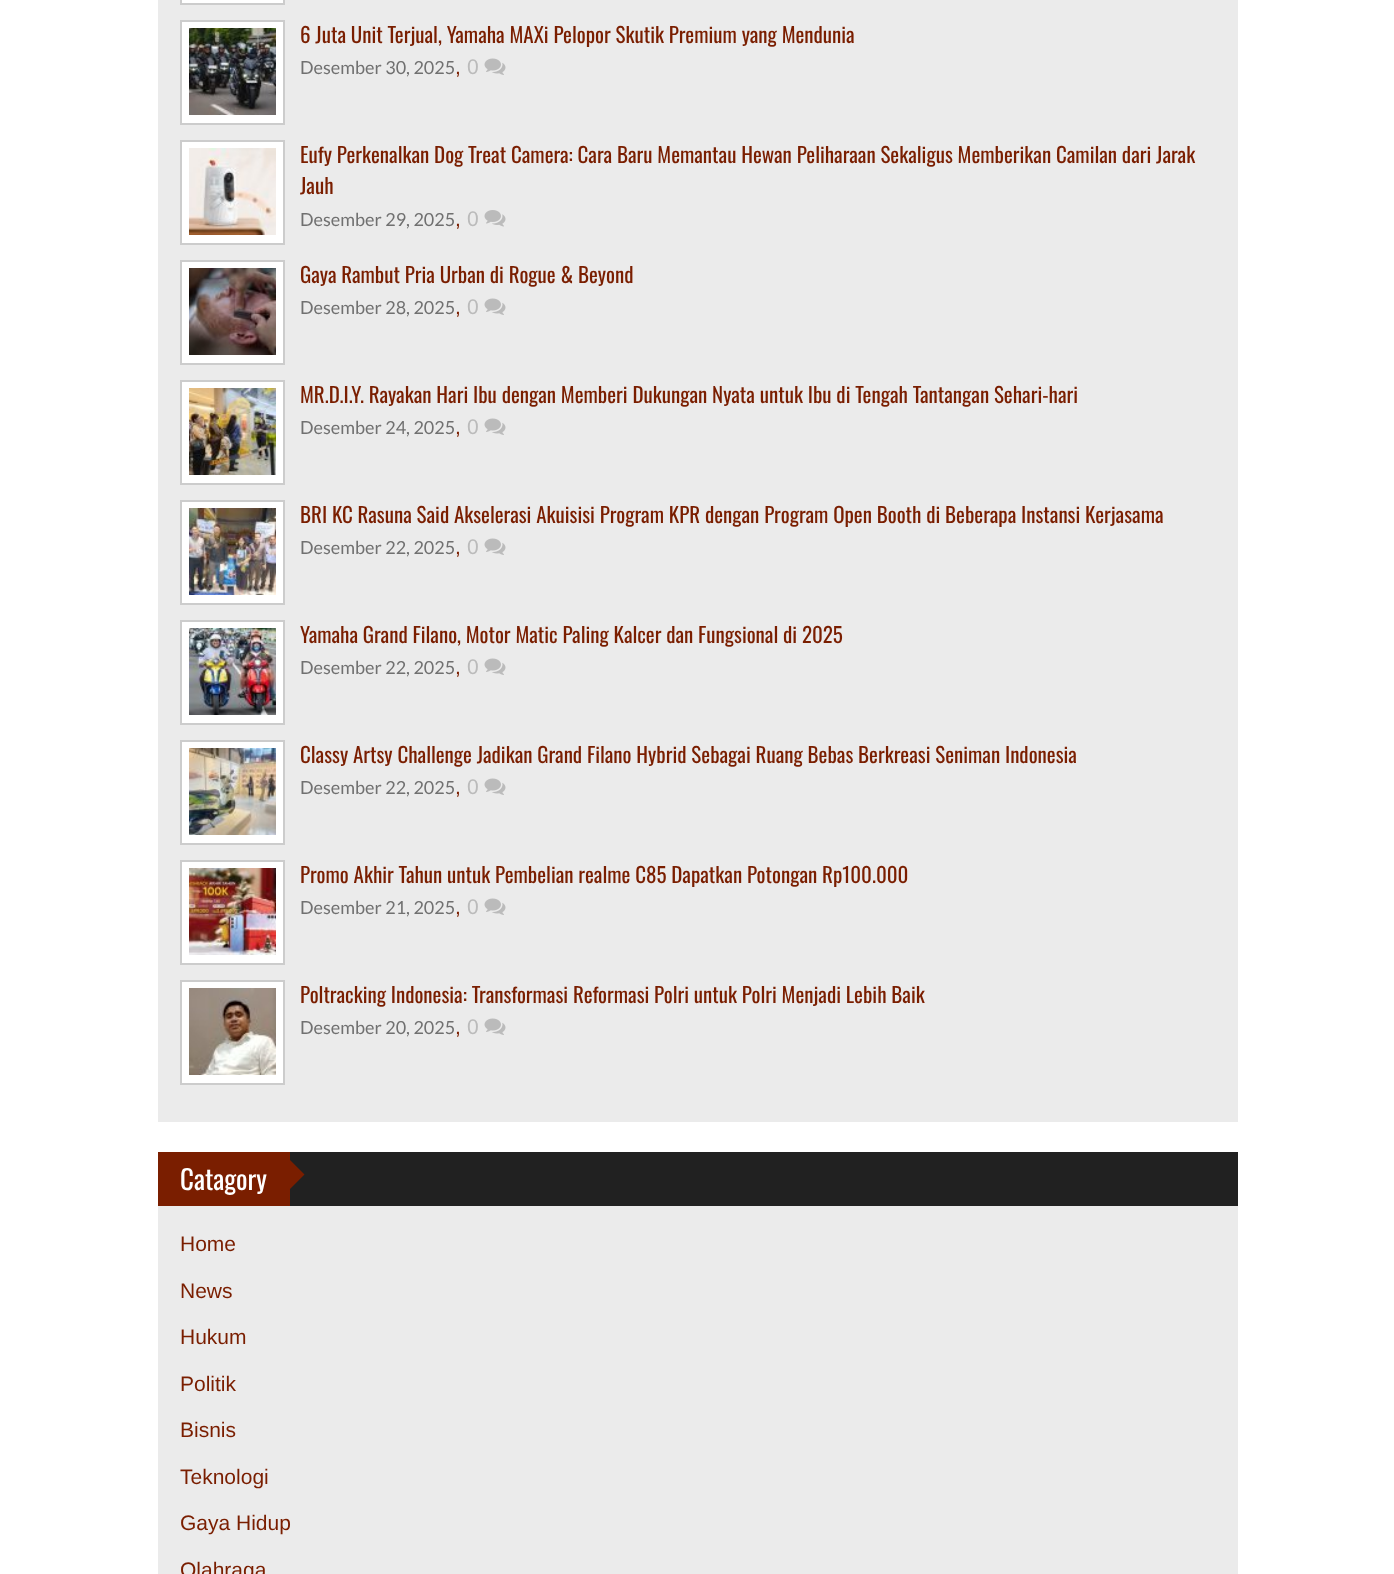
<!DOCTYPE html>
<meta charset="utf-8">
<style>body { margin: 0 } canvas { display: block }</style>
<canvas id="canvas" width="1394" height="1574"></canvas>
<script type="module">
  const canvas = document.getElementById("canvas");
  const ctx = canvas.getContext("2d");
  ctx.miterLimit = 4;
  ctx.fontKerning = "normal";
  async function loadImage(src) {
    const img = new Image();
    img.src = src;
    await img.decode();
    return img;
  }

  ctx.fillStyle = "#ffffff";
  ctx.fillRect(0, 0, 1394, 1574);
  ctx.fillStyle = "#ebebeb";
  ctx.fillRect(158, 0, 1080, 1122);
  ctx.fillStyle = "#ffffff";
  ctx.beginPath();
  ctx.rect(181, -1, 103, 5);
  ctx.fill();
  ctx.strokeStyle = "#cccccc";
  ctx.lineWidth = 2;
  ctx.stroke();
  ctx.beginPath();
  ctx.rect(181, 21, 103, 103);
  ctx.fill();
  ctx.stroke();
  ctx.drawImage(await loadImage("img1.png"), 189, 28, 87, 87);
  ctx.font = "21px Oswald";
  ctx.fillStyle = "#7a1e00";
  ctx.fillText("6 Juta Unit Terjual, Yamaha MAXi Pelopor Skutik Premium yang Mendunia", 300, 43);
  ctx.font = "18px Lato";
  ctx.fillStyle = "#707070";
  ctx.fillText("Desember 30, 2025", 300, 74);
  ctx.font = "21px Liberation Sans";
  ctx.fillStyle = "#7a1e00";
  ctx.fillText(",", 455, 74);
  ctx.fillStyle = "#bbbbbb";
  ctx.fillText("0", 467, 74);
  ctx.drawImage(await loadImage("img2.png"), 484, 58, 22, 17);
  ctx.fillStyle = "#ffffff";
  ctx.beginPath();
  ctx.rect(181, 141, 103, 103);
  ctx.fill();
  ctx.stroke();
  ctx.drawImage(await loadImage("img3.png"), 189, 148, 87, 87);
  ctx.font = "21px Oswald";
  ctx.fillStyle = "#7a1e00";
  ctx.fillText("Eufy Perkenalkan Dog Treat Camera: Cara Baru Memantau Hewan Peliharaan Sekaligus Memberikan Camilan dari Jarak", 300, 163);
  ctx.fillText("Jauh", 300, 194);
  ctx.font = "18px Lato";
  ctx.fillStyle = "#707070";
  ctx.fillText("Desember 29, 2025", 300, 226);
  ctx.font = "21px Liberation Sans";
  ctx.fillStyle = "#7a1e00";
  ctx.fillText(",", 455, 226);
  ctx.fillStyle = "#bbbbbb";
  ctx.fillText("0", 467, 226);
  ctx.drawImage(await loadImage("img4.png"), 484, 210, 22, 17);
  ctx.fillStyle = "#ffffff";
  ctx.beginPath();
  ctx.rect(181, 261, 103, 103);
  ctx.fill();
  ctx.stroke();
  ctx.drawImage(await loadImage("img5.png"), 189, 268, 87, 87);
  ctx.font = "21px Oswald";
  ctx.fillStyle = "#7a1e00";
  ctx.fillText("Gaya Rambut Pria Urban di Rogue & Beyond", 300, 283);
  ctx.font = "18px Lato";
  ctx.fillStyle = "#707070";
  ctx.fillText("Desember 28, 2025", 300, 314);
  ctx.font = "21px Liberation Sans";
  ctx.fillStyle = "#7a1e00";
  ctx.fillText(",", 455, 314);
  ctx.fillStyle = "#bbbbbb";
  ctx.fillText("0", 467, 314);
  ctx.drawImage(await loadImage("img2.png"), 484, 298, 22, 17);
  ctx.fillStyle = "#ffffff";
  ctx.beginPath();
  ctx.rect(181, 381, 103, 103);
  ctx.fill();
  ctx.stroke();
  ctx.drawImage(await loadImage("img6.png"), 189, 388, 87, 87);
  ctx.font = "21px Oswald";
  ctx.fillStyle = "#7a1e00";
  ctx.fillText("MR.D.I.Y. Rayakan Hari Ibu dengan Memberi Dukungan Nyata untuk Ibu di Tengah Tantangan Sehari-hari", 300, 403);
  ctx.font = "18px Lato";
  ctx.fillStyle = "#707070";
  ctx.fillText("Desember 24, 2025", 300, 434);
  ctx.font = "21px Liberation Sans";
  ctx.fillStyle = "#7a1e00";
  ctx.fillText(",", 455, 434);
  ctx.fillStyle = "#bbbbbb";
  ctx.fillText("0", 467, 434);
  ctx.drawImage(await loadImage("img2.png"), 484, 418, 22, 17);
  ctx.fillStyle = "#ffffff";
  ctx.beginPath();
  ctx.rect(181, 501, 103, 103);
  ctx.fill();
  ctx.stroke();
  ctx.drawImage(await loadImage("img7.png"), 189, 508, 87, 87);
  ctx.font = "21px Oswald";
  ctx.fillStyle = "#7a1e00";
  ctx.fillText("BRI KC Rasuna Said Akselerasi Akuisisi Program KPR dengan Program Open Booth di Beberapa Instansi Kerjasama", 300, 523);
  ctx.font = "18px Lato";
  ctx.fillStyle = "#707070";
  ctx.fillText("Desember 22, 2025", 300, 554);
  ctx.font = "21px Liberation Sans";
  ctx.fillStyle = "#7a1e00";
  ctx.fillText(",", 455, 554);
  ctx.fillStyle = "#bbbbbb";
  ctx.fillText("0", 467, 554);
  ctx.drawImage(await loadImage("img2.png"), 484, 538, 22, 17);
  ctx.fillStyle = "#ffffff";
  ctx.beginPath();
  ctx.rect(181, 621, 103, 103);
  ctx.fill();
  ctx.stroke();
  ctx.drawImage(await loadImage("img8.png"), 189, 628, 87, 87);
  ctx.font = "21px Oswald";
  ctx.fillStyle = "#7a1e00";
  ctx.fillText("Yamaha Grand Filano, Motor Matic Paling Kalcer dan Fungsional di 2025", 300, 643);
  ctx.font = "18px Lato";
  ctx.fillStyle = "#707070";
  ctx.fillText("Desember 22, 2025", 300, 674);
  ctx.font = "21px Liberation Sans";
  ctx.fillStyle = "#7a1e00";
  ctx.fillText(",", 455, 674);
  ctx.fillStyle = "#bbbbbb";
  ctx.fillText("0", 467, 674);
  ctx.drawImage(await loadImage("img2.png"), 484, 658, 22, 17);
  ctx.fillStyle = "#ffffff";
  ctx.beginPath();
  ctx.rect(181, 741, 103, 103);
  ctx.fill();
  ctx.stroke();
  ctx.drawImage(await loadImage("img9.png"), 189, 748, 87, 87);
  ctx.font = "21px Oswald";
  ctx.fillStyle = "#7a1e00";
  ctx.fillText("Classy Artsy Challenge Jadikan Grand Filano Hybrid Sebagai Ruang Bebas Berkreasi Seniman Indonesia", 300, 763);
  ctx.font = "18px Lato";
  ctx.fillStyle = "#707070";
  ctx.fillText("Desember 22, 2025", 300, 794);
  ctx.font = "21px Liberation Sans";
  ctx.fillStyle = "#7a1e00";
  ctx.fillText(",", 455, 794);
  ctx.fillStyle = "#bbbbbb";
  ctx.fillText("0", 467, 794);
  ctx.drawImage(await loadImage("img2.png"), 484, 778, 22, 17);
  ctx.fillStyle = "#ffffff";
  ctx.beginPath();
  ctx.rect(181, 861, 103, 103);
  ctx.fill();
  ctx.stroke();
  ctx.drawImage(await loadImage("img10.png"), 189, 868, 87, 87);
  ctx.font = "21px Oswald";
  ctx.fillStyle = "#7a1e00";
  ctx.fillText("Promo Akhir Tahun untuk Pembelian realme C85 Dapatkan Potongan Rp100.000", 300, 883);
  ctx.font = "18px Lato";
  ctx.fillStyle = "#707070";
  ctx.fillText("Desember 21, 2025", 300, 914);
  ctx.font = "21px Liberation Sans";
  ctx.fillStyle = "#7a1e00";
  ctx.fillText(",", 455, 914);
  ctx.fillStyle = "#bbbbbb";
  ctx.fillText("0", 467, 914);
  ctx.drawImage(await loadImage("img2.png"), 484, 898, 22, 17);
  ctx.fillStyle = "#ffffff";
  ctx.beginPath();
  ctx.rect(181, 981, 103, 103);
  ctx.fill();
  ctx.stroke();
  ctx.drawImage(await loadImage("img11.png"), 189, 988, 87, 87);
  ctx.font = "21px Oswald";
  ctx.fillStyle = "#7a1e00";
  ctx.fillText("Poltracking Indonesia: Transformasi Reformasi Polri untuk Polri Menjadi Lebih Baik", 300, 1003);
  ctx.font = "18px Lato";
  ctx.fillStyle = "#707070";
  ctx.fillText("Desember 20, 2025", 300, 1034);
  ctx.font = "21px Liberation Sans";
  ctx.fillStyle = "#7a1e00";
  ctx.fillText(",", 455, 1034);
  ctx.fillStyle = "#bbbbbb";
  ctx.fillText("0", 467, 1034);
  ctx.drawImage(await loadImage("img2.png"), 484, 1018, 22, 17);
  ctx.fillStyle = "#ebebeb";
  ctx.fillRect(158, 1206, 1080, 368);
  ctx.fillStyle = "#212121";
  ctx.fillRect(290, 1152, 948, 54);
  ctx.fillStyle = "#7a1e00";
  ctx.fillRect(158, 1152, 132, 54);
  ctx.font = "27px Oswald";
  ctx.fillStyle = "#ffffff";
  ctx.fillText("Catagory", 180, 1190);
  ctx.fillStyle = "#7a1e00";
  ctx.beginPath();
  ctx.moveTo(289.5, 1189.5);
  ctx.lineTo(289.5, 1159.5);
  ctx.lineTo(304.5, 1174.5);
  ctx.closePath();
  ctx.fill();
  ctx.font = "21px Liberation Sans";
  ctx.fillText("Home", 180, 1251);
  ctx.fillText("News", 180, 1298);
  ctx.fillText("Hukum", 180, 1344);
  ctx.fillText("Politik", 180, 1391);
  ctx.fillText("Bisnis", 180, 1437);
  ctx.fillText("Teknologi", 180, 1484);
  ctx.fillText("Gaya Hidup", 180, 1530);
  ctx.fillText("Olahraga", 180, 1577);
</script>
